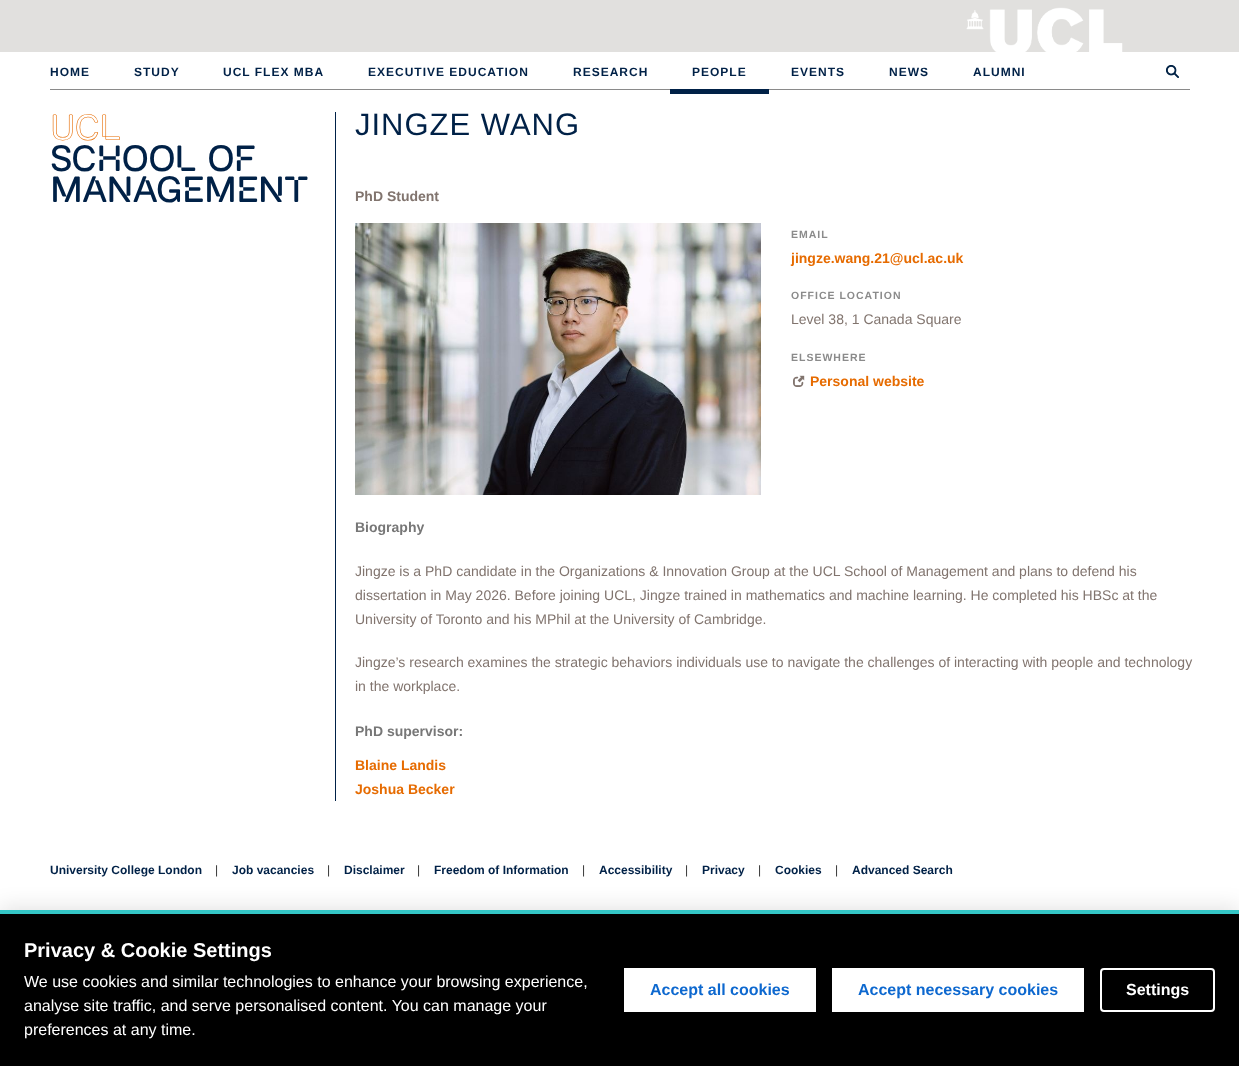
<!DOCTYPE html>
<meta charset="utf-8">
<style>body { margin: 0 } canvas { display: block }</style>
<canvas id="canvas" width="1239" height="1066"></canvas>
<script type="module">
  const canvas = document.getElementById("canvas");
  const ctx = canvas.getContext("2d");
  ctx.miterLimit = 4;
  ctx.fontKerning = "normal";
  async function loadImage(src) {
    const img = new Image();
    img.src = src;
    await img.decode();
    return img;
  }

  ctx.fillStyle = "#ffffff";
  ctx.fillRect(0, 0, 1239, 1066);
  ctx.fillStyle = "#e1e0de";
  ctx.fillRect(0, 0, 1239, 52);
  ctx.drawImage(await loadImage("img1.png"), 966, 7, 157, 45);
  ctx.fillStyle = "#8a8a8a";
  ctx.fillRect(50, 89, 1140, 1);
  ctx.letterSpacing = "1px";
  ctx.font = "bold 12px Liberation Sans";
  ctx.fillStyle = "#002147";
  ctx.fillText("HOME", 50, 76);
  ctx.fillText("STUDY", 134, 76);
  ctx.fillText("UCL FLEX MBA", 223, 76);
  ctx.fillText("EXECUTIVE EDUCATION", 368, 76);
  ctx.fillText("RESEARCH", 573, 76);
  ctx.fillRect(670, 89, 99, 5);
  ctx.fillText("PEOPLE", 692, 76);
  ctx.fillText("EVENTS", 791, 76);
  ctx.fillText("NEWS", 889, 76);
  ctx.fillText("ALUMNI", 973, 76);
  ctx.drawImage(await loadImage("img2.png"), 1166, 65, 13, 13);
  ctx.letterSpacing = "-0.75px";
  ctx.font = "36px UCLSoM";
  ctx.fillStyle = "#e66b00";
  ctx.fillText("UCL", 50, 140);
  ctx.font = "36px 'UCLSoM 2'";
  ctx.fillStyle = "#002147";
  ctx.fillText("School of", 50, 171);
  ctx.fillText("Management", 50, 202);
  ctx.fillRect(335, 112, 1, 689);
  ctx.letterSpacing = "1px";
  ctx.font = "31px Liberation Sans";
  ctx.fillText("JINGZE WANG", 355, 135);
  ctx.letterSpacing = "0px";
  ctx.font = "bold 14px Liberation Sans";
  ctx.fillStyle = "#81746e";
  ctx.fillText("PhD Student", 355, 201);
  ctx.drawImage(await loadImage("img3.png"), 355, 223, 406, 272);
  ctx.letterSpacing = "1px";
  ctx.font = "bold 10.5px Liberation Sans";
  ctx.fillStyle = "#8b8b8b";
  ctx.fillText("EMAIL", 791, 238);
  ctx.letterSpacing = "0px";
  ctx.font = "bold 14px Liberation Sans";
  ctx.fillStyle = "#e66b00";
  ctx.fillText("jingze.wang.21@ucl.ac.uk", 791, 263);
  ctx.letterSpacing = "1px";
  ctx.font = "bold 10.5px Liberation Sans";
  ctx.fillStyle = "#8b8b8b";
  ctx.fillText("OFFICE LOCATION", 791, 299);
  ctx.letterSpacing = "0px";
  ctx.font = "14px Liberation Sans";
  ctx.fillStyle = "#81746e";
  ctx.fillText("Level 38, 1 Canada Square", 791, 324);
  ctx.letterSpacing = "1px";
  ctx.font = "bold 10.5px Liberation Sans";
  ctx.fillStyle = "#8b8b8b";
  ctx.fillText("ELSEWHERE", 791, 361);
  ctx.drawImage(await loadImage("img4.png"), 793, 375, 12, 12);
  ctx.letterSpacing = "0px";
  ctx.font = "bold 14px Liberation Sans";
  ctx.fillStyle = "#e66b00";
  ctx.fillText("Personal website", 810, 386);
  ctx.fillStyle = "#777777";
  ctx.fillText("Biography", 355, 532);
  ctx.font = "14px Liberation Sans";
  ctx.fillStyle = "#81746e";
  ctx.fillText("Jingze is a PhD candidate in the Organizations & Innovation Group at the UCL School of Management and plans to defend his", 355, 576);
  ctx.fillText("dissertation in May 2026. Before joining UCL, Jingze trained in mathematics and machine learning. He completed his HBSc at the", 355, 600);
  ctx.fillText("University of Toronto and his MPhil at the University of Cambridge.", 355, 624);
  ctx.fillText("Jingze’s research examines the strategic behaviors individuals use to navigate the challenges of interacting with people and technology", 355, 667);
  ctx.fillText("in the workplace.", 355, 691);
  ctx.font = "bold 14px Liberation Sans";
  ctx.fillStyle = "#777777";
  ctx.fillText("PhD supervisor:", 355, 736);
  ctx.fillStyle = "#e66b00";
  ctx.fillText("Blaine Landis", 355, 770);
  ctx.fillText("Joshua Becker", 355, 794);
  ctx.font = "bold 12px Liberation Sans";
  ctx.fillStyle = "#002147";
  ctx.fillText("University College London", 50, 874);
  ctx.font = "12px Liberation Sans";
  ctx.fillStyle = "#333333";
  ctx.fillText("|", 215, 874);
  ctx.font = "bold 12px Liberation Sans";
  ctx.fillStyle = "#002147";
  ctx.fillText("Job vacancies", 232, 874);
  ctx.font = "12px Liberation Sans";
  ctx.fillStyle = "#333333";
  ctx.fillText("|", 327, 874);
  ctx.font = "bold 12px Liberation Sans";
  ctx.fillStyle = "#002147";
  ctx.fillText("Disclaimer", 344, 874);
  ctx.font = "12px Liberation Sans";
  ctx.fillStyle = "#333333";
  ctx.fillText("|", 417, 874);
  ctx.font = "bold 12px Liberation Sans";
  ctx.fillStyle = "#002147";
  ctx.fillText("Freedom of Information", 434, 874);
  ctx.font = "12px Liberation Sans";
  ctx.fillStyle = "#333333";
  ctx.fillText("|", 582, 874);
  ctx.font = "bold 12px Liberation Sans";
  ctx.fillStyle = "#002147";
  ctx.fillText("Accessibility", 599, 874);
  ctx.font = "12px Liberation Sans";
  ctx.fillStyle = "#333333";
  ctx.fillText("|", 685, 874);
  ctx.font = "bold 12px Liberation Sans";
  ctx.fillStyle = "#002147";
  ctx.fillText("Privacy", 702, 874);
  ctx.font = "12px Liberation Sans";
  ctx.fillStyle = "#333333";
  ctx.fillText("|", 758, 874);
  ctx.font = "bold 12px Liberation Sans";
  ctx.fillStyle = "#002147";
  ctx.fillText("Cookies", 775, 874);
  ctx.font = "12px Liberation Sans";
  ctx.fillStyle = "#333333";
  ctx.fillText("|", 835, 874);
  ctx.font = "bold 12px Liberation Sans";
  ctx.fillStyle = "#002147";
  ctx.fillText("Advanced Search", 852, 874);
  ctx.fillStyle = "rgba(0, 0, 0, 0.1)";
  ctx.filter = "blur(10px)";
  ctx.beginPath();
  ctx.rect(0, 906, 1239, 156);
  ctx.fill();
  ctx.filter = "none";
  ctx.fillStyle = "#000000";
  ctx.fillRect(0, 914, 1239, 152);
  ctx.fillStyle = "#34c6c6";
  ctx.fillRect(0, 910, 1239, 4);
  ctx.font = "bold 20px Liberation Sans";
  ctx.fillStyle = "#ffffff";
  ctx.fillText("Privacy & Cookie Settings", 24, 957);
  ctx.font = "16px Liberation Sans";
  ctx.fillText("We use cookies and similar technologies to enhance your browsing experience,", 24, 987);
  ctx.fillText("analyse site traffic, and serve personalised content. You can manage your", 24, 1011);
  ctx.fillText("preferences at any time.", 24, 1035);
  ctx.fillRect(624, 968, 192, 44);
  ctx.font = "bold 16px Liberation Sans";
  ctx.fillStyle = "#0d68cf";
  ctx.fillText("Accept all cookies", 650, 995);
  ctx.fillStyle = "#ffffff";
  ctx.fillRect(832, 968, 252, 44);
  ctx.fillStyle = "#0d68cf";
  ctx.fillText("Accept necessary cookies", 858, 995);
  ctx.beginPath();
  ctx.roundRect(1101, 969, 113, 42, 3);
  ctx.strokeStyle = "#ffffff";
  ctx.lineWidth = 2;
  ctx.stroke();
  ctx.fillStyle = "#ffffff";
  ctx.fillText("Settings", 1126, 995);
</script>
